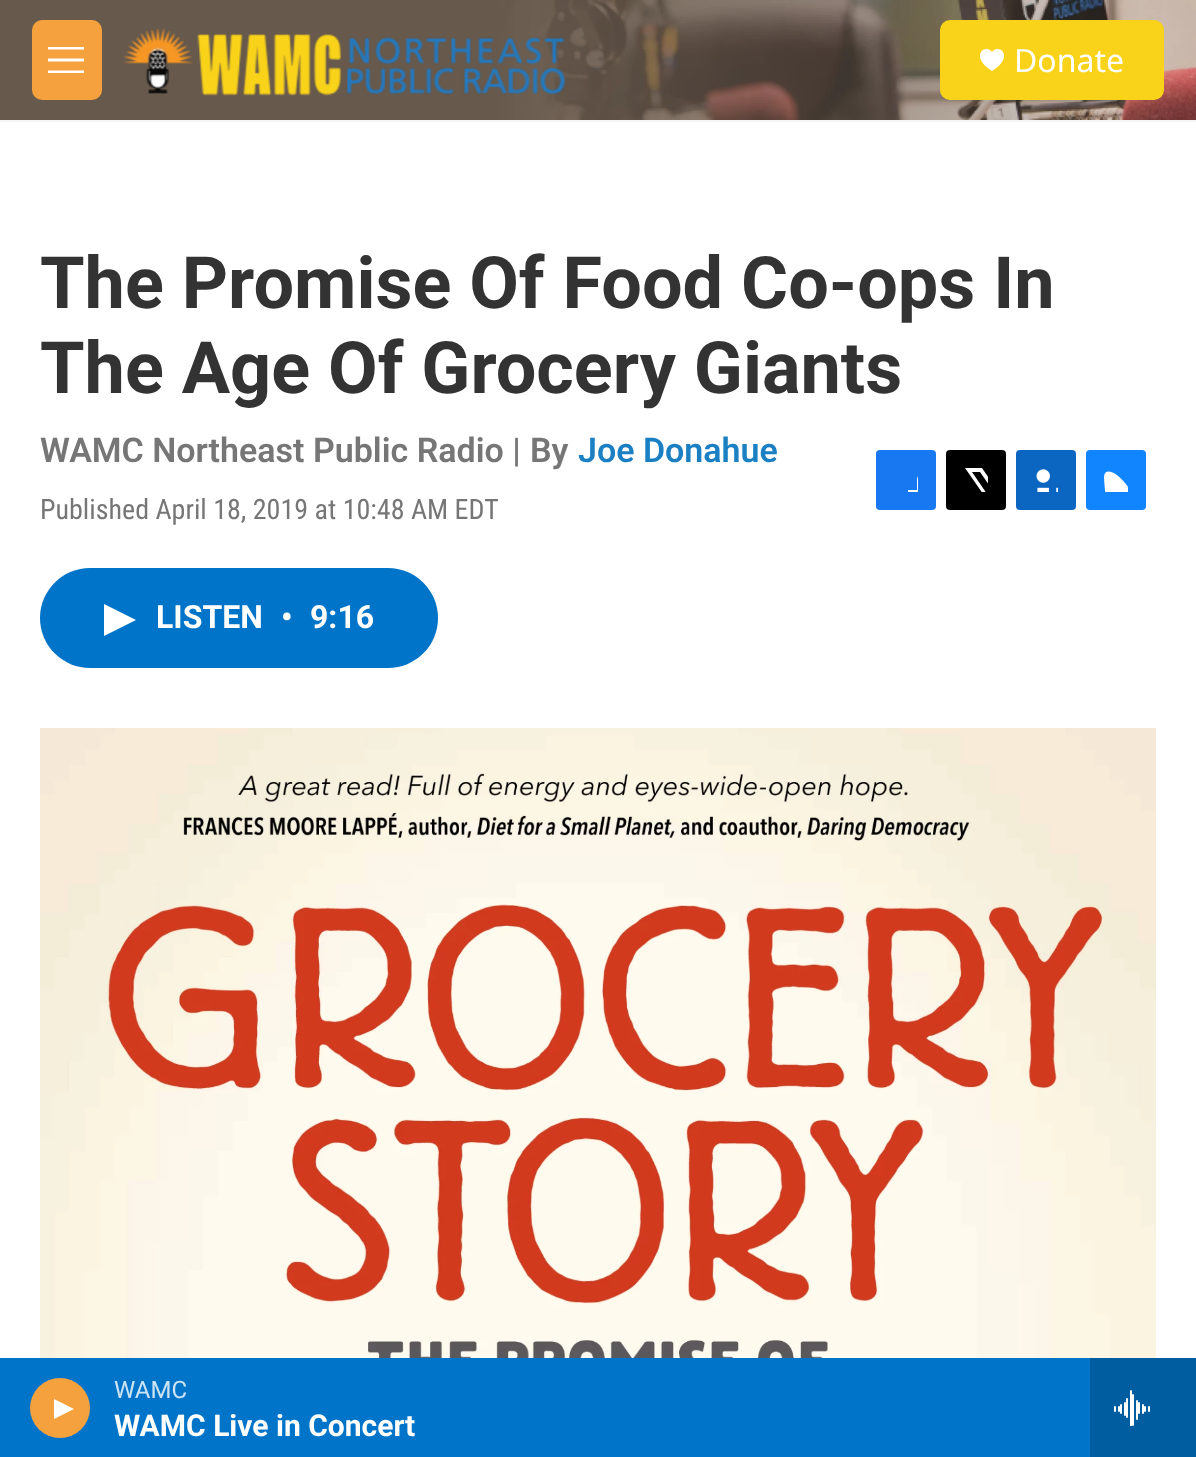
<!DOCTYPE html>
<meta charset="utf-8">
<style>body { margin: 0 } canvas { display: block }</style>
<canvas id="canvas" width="1196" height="1457"></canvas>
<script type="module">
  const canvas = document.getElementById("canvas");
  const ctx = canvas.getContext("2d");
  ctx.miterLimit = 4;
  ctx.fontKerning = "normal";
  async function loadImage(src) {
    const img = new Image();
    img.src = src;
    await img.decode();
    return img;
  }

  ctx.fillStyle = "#ffffff";
  ctx.fillRect(0, 0, 1196, 1457);
  ctx.fillStyle = "#f5f5f5";
  ctx.fillRect(0, 120, 1196, 2);
  ctx.drawImage(await loadImage("img1.png"), 0, 0, 1196, 120);
  ctx.fillStyle = "#f5a13d";
  ctx.beginPath();
  ctx.roundRect(32, 20, 70, 80, 10);
  ctx.fill();
  ctx.fillStyle = "#ffffff";
  ctx.beginPath();
  ctx.moveTo(48, 61.5);
  ctx.lineTo(48, 58.5);
  ctx.lineTo(84, 58.5);
  ctx.lineTo(84, 61.5);
  ctx.closePath();
  ctx.moveTo(48, 49.5);
  ctx.lineTo(48, 47);
  ctx.lineTo(84, 47);
  ctx.lineTo(84, 49.5);
  ctx.closePath();
  ctx.moveTo(48, 73);
  ctx.lineTo(48, 70.5);
  ctx.lineTo(84, 70.5);
  ctx.lineTo(84, 73);
  ctx.closePath();
  ctx.fill("evenodd");
  ctx.drawImage(await loadImage("img2.png"), 123, 28, 443, 68);
  ctx.fillStyle = "#f9d319";
  ctx.beginPath();
  ctx.roundRect(940, 20, 224, 80, 10);
  ctx.fill();
  ctx.drawImage(await loadImage("img3.png"), 980, 49, 24, 22);
  ctx.font = "32px Noto Sans";
  ctx.fillStyle = "#ffffff";
  ctx.fillText("Donate", 1014, 72);
  ctx.fillStyle = "#0074c8";
  ctx.fillRect(0, 1358, 1090, 99);
  ctx.fillStyle = "#f5a13d";
  ctx.beginPath();
  ctx.arc(60, 1408, 30, 0, Math.PI * 2);
  ctx.fill();
  ctx.fillStyle = "#ffffff";
  ctx.beginPath();
  ctx.moveTo(54, 1399);
  ctx.lineTo(74, 1409);
  ctx.lineTo(54, 1419);
  ctx.closePath();
  ctx.fill();
  ctx.font = "24px Roboto";
  ctx.fillStyle = "#cce3f4";
  ctx.fillText("WAMC", 114, 1398);
  ctx.font = "bold 30px 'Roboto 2'";
  ctx.fillStyle = "#ffffff";
  ctx.fillText("WAMC Live in Concert", 114, 1436);
  ctx.fillStyle = "#005da0";
  ctx.fillRect(1090, 1358, 106, 99);
  ctx.drawImage(await loadImage("img4.png"), 1114, 1390, 36, 36);
  ctx.font = "bold 72px Roboto";
  ctx.fillStyle = "#333333";
  ctx.fillText("The Promise Of Food Co-ops In", 40, 308);
  ctx.fillText("The Age Of Grocery Giants", 40, 393);
  ctx.font = "600 34px Roboto";
  ctx.fillStyle = "#767676";
  ctx.fillText("WAMC Northeast Public Radio |", 40, 462);
  ctx.fillText("By", 530, 462);
  ctx.fillStyle = "#1a7fc3";
  ctx.fillText("Joe Donahue", 578, 462);
  ctx.font = "28px Roboto Condensed";
  ctx.fillStyle = "#767676";
  ctx.fillText("Published April 18, 2019 at 10:48 AM EDT", 40, 519);
  ctx.fillStyle = "#1778f2";
  ctx.beginPath();
  ctx.roundRect(876, 450, 60, 60, 4);
  ctx.fill();
  ctx.save();
  ctx.beginPath();
  ctx.rect(894, 468, 24, 24);
  ctx.clip();
  ctx.fillStyle = "#ffffff";
  ctx.beginPath();
  ctx.moveTo(927, 510);
  ctx.lineTo(917, 510);
  ctx.lineTo(917, 500);
  ctx.lineTo(908, 500);
  ctx.lineTo(908, 490);
  ctx.lineTo(917, 490);
  ctx.lineTo(917, 479);
  ctx.bezierCurveTo(919, 470, 928, 468, 936, 469);
  ctx.lineTo(936, 478);
  ctx.bezierCurveTo(925, 478, 927, 481, 927, 490);
  ctx.lineTo(936, 490);
  ctx.lineTo(936, 495);
  ctx.lineTo(935, 500);
  ctx.lineTo(927, 500);
  ctx.closePath();
  ctx.fill();
  ctx.restore();
  ctx.fillStyle = "#000000";
  ctx.beginPath();
  ctx.roundRect(946, 450, 60, 60, 4);
  ctx.fill();
  ctx.save();
  ctx.beginPath();
  ctx.rect(964, 468, 24, 24);
  ctx.clip();
  ctx.fillStyle = "#ffffff";
  ctx.beginPath();
  ctx.moveTo(1000, 493);
  ctx.lineTo(1006, 502);
  ctx.bezierCurveTo(1006, 504, 1007, 507, 1005, 508);
  ctx.lineTo(980, 472);
  ctx.lineTo(972, 472);
  ctx.lineTo(998, 510);
  ctx.lineTo(993, 510);
  ctx.lineTo(990, 505);
  ctx.lineTo(986, 510);
  ctx.lineTo(980, 510);
  ctx.lineTo(988, 501);
  ctx.lineTo(965, 468);
  ctx.lineTo(982, 468);
  ctx.lineTo(997, 490);
  ctx.lineTo(1006, 480);
  ctx.lineTo(1006, 486);
  ctx.closePath();
  ctx.fill();
  ctx.restore();
  ctx.fillStyle = "#0a66c1";
  ctx.beginPath();
  ctx.roundRect(1016, 450, 60, 60, 4);
  ctx.fill();
  ctx.drawImage(await loadImage("img5.png"), 1036, 469, 22, 23);
  ctx.fillStyle = "#1185fe";
  ctx.beginPath();
  ctx.roundRect(1086, 450, 60, 60, 4);
  ctx.fill();
  ctx.drawImage(await loadImage("img6.png"), 1104, 471, 24, 21);
  ctx.fillStyle = "#0074c8";
  ctx.beginPath();
  ctx.roundRect(40, 568, 398, 100, 50);
  ctx.fill();
  ctx.fillStyle = "#ffffff";
  ctx.beginPath();
  ctx.moveTo(104, 604);
  ctx.lineTo(136, 620);
  ctx.lineTo(104, 636);
  ctx.closePath();
  ctx.fill();
  ctx.font = "bold 32px 'Roboto 2'";
  ctx.fillText("LISTEN", 156, 628);
  ctx.fillText("•", 281, 628);
  ctx.fillText("9:16", 310, 628);
  ctx.drawImage(await loadImage("img7.png"), 40, 728, 1116, 630);
</script>
